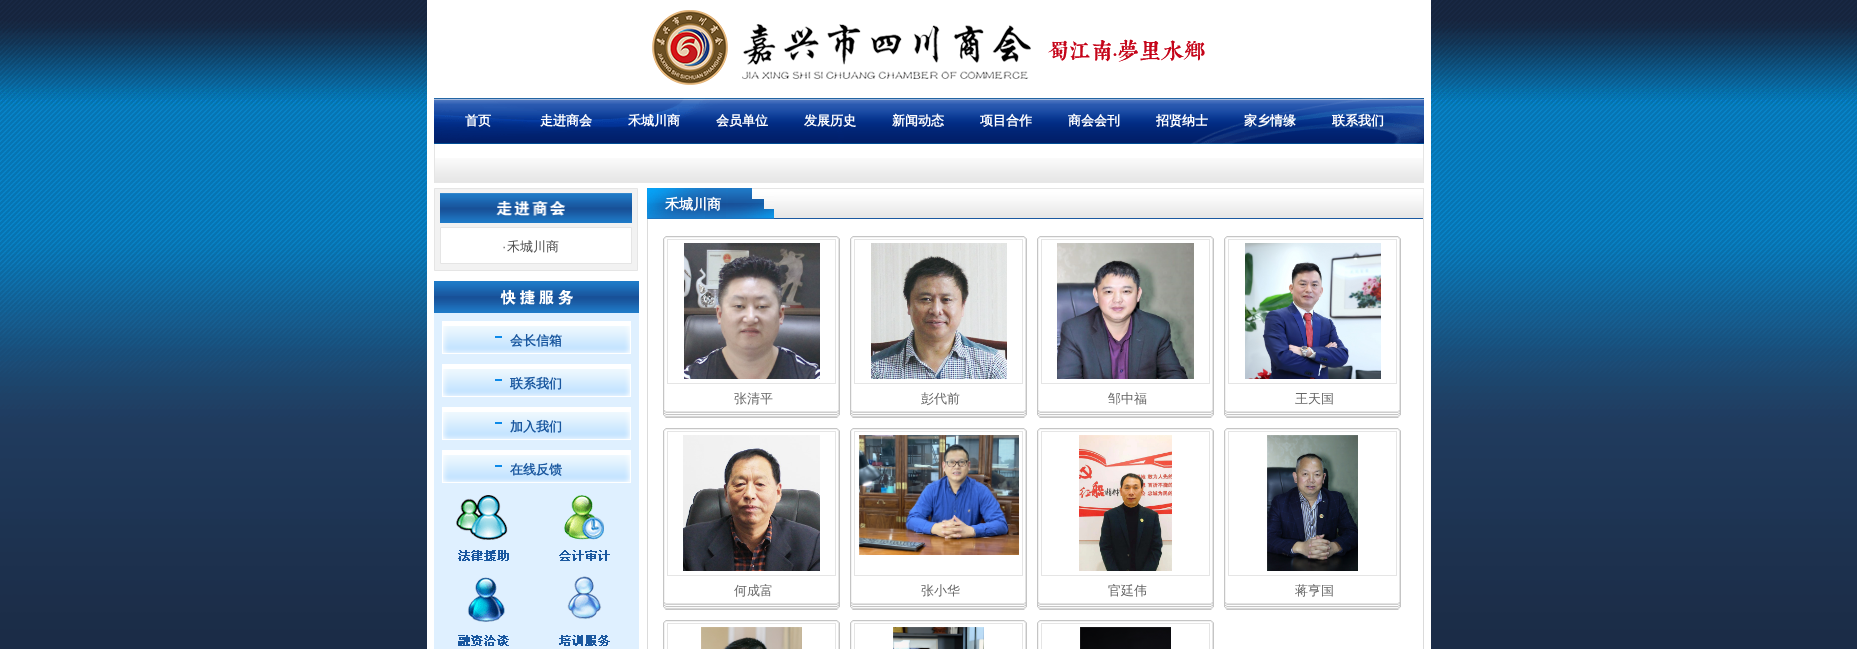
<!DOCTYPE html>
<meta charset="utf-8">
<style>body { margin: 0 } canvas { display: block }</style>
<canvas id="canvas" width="1857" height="649"></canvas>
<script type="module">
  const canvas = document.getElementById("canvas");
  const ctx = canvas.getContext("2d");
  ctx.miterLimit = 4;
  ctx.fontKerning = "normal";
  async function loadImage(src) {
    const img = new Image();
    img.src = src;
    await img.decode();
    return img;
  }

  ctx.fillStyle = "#ffffff";
  ctx.fillRect(0, 0, 1857, 649);
  ctx.drawImage(await loadImage("img1.png"), 0, 0, 1857, 649);
  ctx.fillRect(427, 0, 1004, 649);
  ctx.drawImage(await loadImage("img2.png"), 652, 10, 553, 75);
  ctx.drawImage(await loadImage("img3.png"), 434, 98, 990, 46);
  ctx.font = "bold 13px WenQuanYi Zen Hei";
  ctx.fillText("首页", 465, 125);
  ctx.fillText("走进商会", 540, 125);
  ctx.fillText("禾城川商", 628, 125);
  ctx.fillText("会员单位", 716, 125);
  ctx.fillText("发展历史", 804, 125);
  ctx.fillText("新闻动态", 892, 125);
  ctx.fillText("项目合作", 980, 125);
  ctx.fillText("商会会刊", 1068, 125);
  ctx.fillText("招贤纳士", 1156, 125);
  ctx.fillText("家乡情缘", 1244, 125);
  ctx.fillText("联系我们", 1332, 125);
  ctx.drawImage(await loadImage("img4.png"), 435, 158, 988, 25);
  ctx.fillStyle = "#e5e5e5";
  ctx.fillRect(1423, 144, 1, 39);
  ctx.fillRect(434, 144, 1, 39);
  ctx.fillStyle = "#f2f2f2";
  ctx.beginPath();
  ctx.rect(434.5, 188.5, 203, 82);
  ctx.fill();
  ctx.strokeStyle = "#e5e5e5";
  ctx.stroke();
  ctx.drawImage(await loadImage("img5.png"), 440, 193, 192, 30);
  ctx.fillStyle = "#ffffff";
  ctx.beginPath();
  ctx.rect(440.5, 227.5, 191, 36);
  ctx.fill();
  ctx.stroke();
  ctx.font = "13px Liberation Sans";
  ctx.fillStyle = "#666666";
  ctx.fillText("·", 502, 251);
  ctx.font = "500 13px WenQuanYi Zen Hei";
  ctx.fillStyle = "#4d4d4d";
  ctx.fillText("禾城川商", 507, 251);
  ctx.fillStyle = "#dff0ff";
  ctx.fillRect(434, 313, 205, 336);
  ctx.drawImage(await loadImage("img6.png"), 434, 281, 205, 32);
  ctx.drawImage(await loadImage("img7.png"), 442, 321, 189, 33);
  ctx.font = "bold 13px WenQuanYi Zen Hei";
  ctx.fillStyle = "#19579f";
  ctx.fillText("会长信箱", 510, 345);
  ctx.drawImage(await loadImage("img7.png"), 442, 364, 189, 33);
  ctx.fillText("联系我们", 510, 388);
  ctx.drawImage(await loadImage("img7.png"), 442, 407, 189, 33);
  ctx.fillText("加入我们", 510, 431);
  ctx.drawImage(await loadImage("img7.png"), 442, 450, 189, 33);
  ctx.fillText("在线反馈", 510, 474);
  ctx.drawImage(await loadImage("img8.png"), 456, 495, 154, 151);
  ctx.drawImage(await loadImage("img9.png"), 647, 188, 127, 31);
  ctx.font = "bold 14px WenQuanYi Zen Hei";
  ctx.fillStyle = "#ffffff";
  ctx.fillText("禾城川商", 665, 209);
  ctx.drawImage(await loadImage("img10.png"), 774, 188, 649, 31);
  ctx.fillStyle = "#e5e5e5";
  ctx.fillRect(1423, 188, 1, 31);
  ctx.fillStyle = "#dbdbdb";
  ctx.fillRect(1423, 219, 1, 430);
  ctx.fillRect(647, 219, 1, 430);
  ctx.drawImage(await loadImage("img11.png"), 663, 236, 177, 182);
  ctx.drawImage(await loadImage("img12.png"), 684, 243, 136, 136);
  ctx.font = "500 13px WenQuanYi Zen Hei";
  ctx.fillStyle = "#666666";
  ctx.fillText("张清平", 734, 403);
  ctx.drawImage(await loadImage("img11.png"), 850, 236, 177, 182);
  ctx.drawImage(await loadImage("img13.png"), 871, 243, 136, 136);
  ctx.fillText("彭代前", 921, 403);
  ctx.drawImage(await loadImage("img11.png"), 1037, 236, 177, 182);
  ctx.drawImage(await loadImage("img14.png"), 1057, 243, 137, 136);
  ctx.fillText("邹中福", 1108, 403);
  ctx.drawImage(await loadImage("img11.png"), 1224, 236, 177, 182);
  ctx.drawImage(await loadImage("img15.png"), 1245, 243, 136, 136);
  ctx.fillText("王天国", 1295, 403);
  ctx.drawImage(await loadImage("img11.png"), 663, 428, 177, 182);
  ctx.drawImage(await loadImage("img16.png"), 683, 435, 137, 136);
  ctx.fillText("何成富", 734, 595);
  ctx.drawImage(await loadImage("img11.png"), 850, 428, 177, 182);
  ctx.drawImage(await loadImage("img17.png"), 859, 435, 160, 120);
  ctx.fillText("张小华", 921, 595);
  ctx.drawImage(await loadImage("img11.png"), 1037, 428, 177, 182);
  ctx.drawImage(await loadImage("img18.png"), 1079, 435, 93, 136);
  ctx.fillText("官廷伟", 1108, 595);
  ctx.drawImage(await loadImage("img11.png"), 1224, 428, 177, 182);
  ctx.drawImage(await loadImage("img19.png"), 1267, 435, 91, 136);
  ctx.fillText("蒋亨国", 1295, 595);
  ctx.drawImage(await loadImage("img20.png"), 663, 620, 177, 29);
  ctx.drawImage(await loadImage("img21.png"), 701, 627, 101, 22);
  ctx.drawImage(await loadImage("img20.png"), 850, 620, 177, 29);
  ctx.drawImage(await loadImage("img22.png"), 893, 627, 91, 22);
  ctx.drawImage(await loadImage("img20.png"), 1037, 620, 177, 29);
  ctx.drawImage(await loadImage("img23.png"), 1080, 627, 91, 22);
</script>
